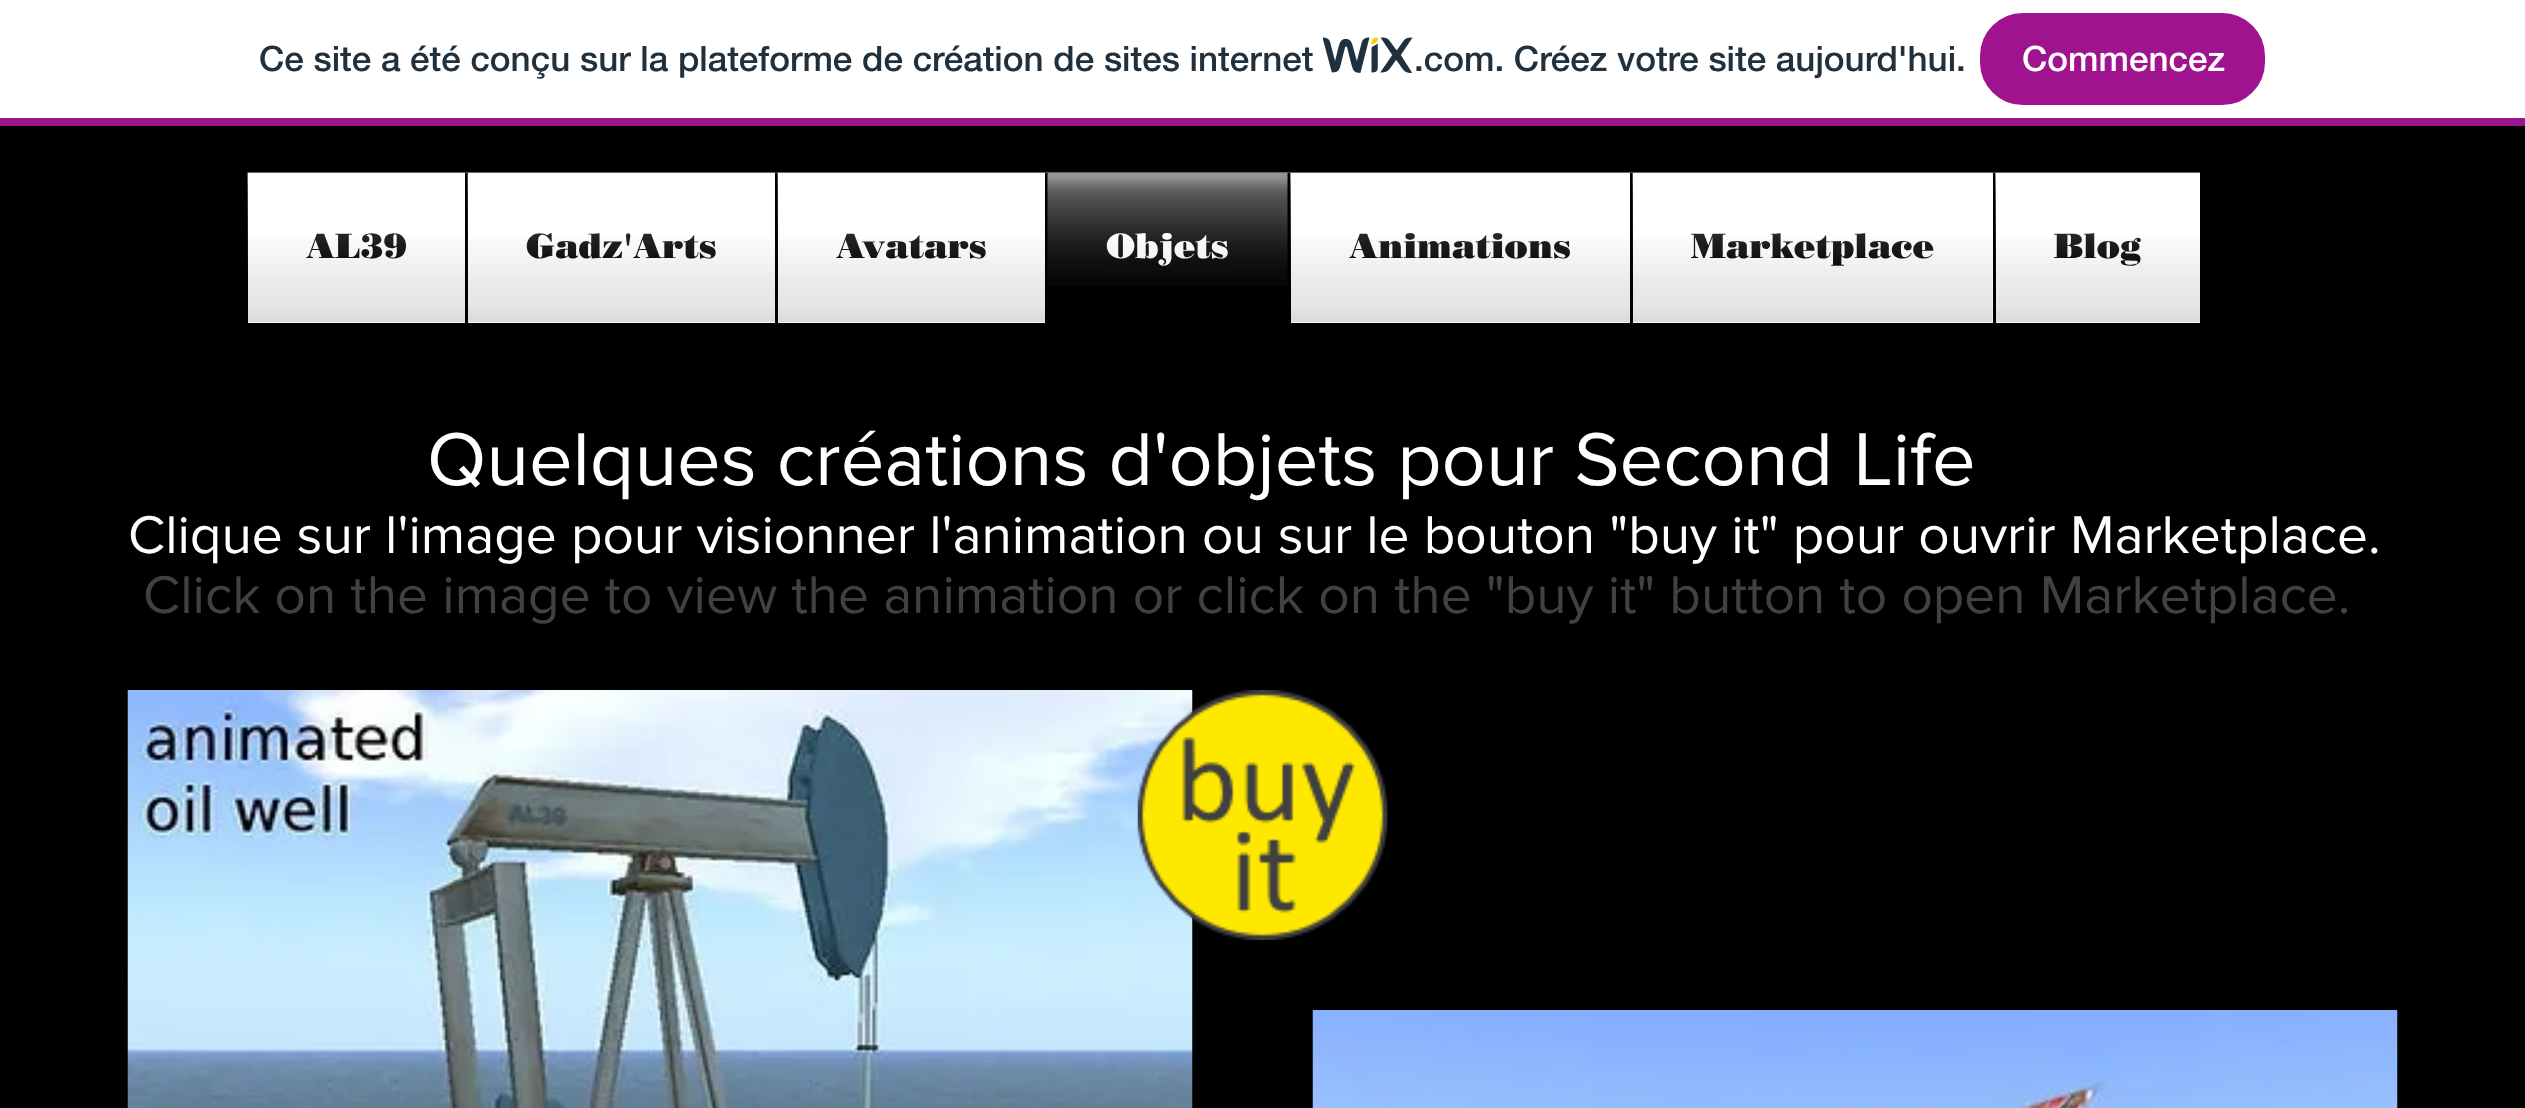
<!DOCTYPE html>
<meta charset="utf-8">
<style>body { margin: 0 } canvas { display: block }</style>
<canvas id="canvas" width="2525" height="1108"></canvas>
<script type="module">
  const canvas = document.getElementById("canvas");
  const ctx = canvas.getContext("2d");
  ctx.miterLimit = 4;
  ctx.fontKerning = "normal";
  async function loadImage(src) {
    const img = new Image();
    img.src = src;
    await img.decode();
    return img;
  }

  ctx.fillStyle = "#ffffff";
  ctx.fillRect(0, 0, 2525, 1108);
  ctx.fillStyle = "#a0138e";
  ctx.fillRect(0, 118, 2525, 8);
  ctx.font = "500 35px 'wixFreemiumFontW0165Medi'";
  ctx.fillStyle = "#20303c";
  ctx.fillText("Ce site a été conçu sur la plateforme de création de sites internet", 259, 71);
  ctx.drawImage(await loadImage("img1.png"), 1323, 37, 90, 36);
  ctx.fillText(".com. Créez votre site aujourd'hui.", 1414, 71);
  ctx.fillStyle = "#a0138e";
  ctx.beginPath();
  ctx.roundRect(1981.5, 14.5, 282, 89, 41.5);
  ctx.fill();
  ctx.strokeStyle = "#a0138e";
  ctx.lineWidth = 3;
  ctx.stroke();
  ctx.fillStyle = "#ffffff";
  ctx.fillText("Commencez", 2022, 71);
  ctx.fillStyle = "#000000";
  ctx.fillRect(0, 126, 2525, 982);
  ctx.drawImage(await loadImage("img2.png"), 247, 172, 1953, 99);
  ctx.fillStyle = "#ffffff";
  ctx.fillRect(248, 173, 217, 150);
  ctx.font = "900 35px 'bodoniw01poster'";
  ctx.fillStyle = "#000000";
  ctx.fillText("AL39", 306, 258);
  ctx.drawImage(await loadImage("img3.png"), 247, 172, 218, 87);
  ctx.drawImage(await loadImage("img4.png"), 248, 239, 217, 84);
  ctx.fillStyle = "#ffffff";
  ctx.fillRect(468, 173, 307, 150);
  ctx.fillStyle = "#000000";
  ctx.fillRect(465, 173, 3, 98);
  ctx.fillText("Gadz'Arts", 526, 258);
  ctx.drawImage(await loadImage("img5.png"), 467, 172, 308, 104);
  ctx.drawImage(await loadImage("img6.png"), 468, 239, 307, 84);
  ctx.fillStyle = "#ffffff";
  ctx.fillRect(778, 173, 267, 150);
  ctx.fillStyle = "#000000";
  ctx.fillRect(775, 173, 3, 98);
  ctx.fillText("Avatars", 836, 258);
  ctx.drawImage(await loadImage("img7.png"), 777, 172, 268, 104);
  ctx.drawImage(await loadImage("img8.png"), 778, 239, 267, 84);
  ctx.fillRect(1045, 173, 246, 98);
  ctx.fillStyle = "#ffffff";
  ctx.fillText("Objets", 1106, 258);
  ctx.drawImage(await loadImage("img9.png"), 1047, 172, 241, 114);
  ctx.drawImage(await loadImage("img10.png"), 1107, 239, 121, 27);
  ctx.fillRect(1291, 173, 339, 150);
  ctx.fillStyle = "#000000";
  ctx.fillText("Animations", 1349, 258);
  ctx.drawImage(await loadImage("img11.png"), 1290, 172, 340, 114);
  ctx.drawImage(await loadImage("img12.png"), 1291, 239, 339, 84);
  ctx.fillStyle = "#ffffff";
  ctx.fillRect(1633, 173, 360, 150);
  ctx.fillStyle = "#000000";
  ctx.fillRect(1630, 173, 3, 98);
  ctx.fillText("Marketplace", 1691, 258);
  ctx.drawImage(await loadImage("img13.png"), 1632, 172, 361, 104);
  ctx.drawImage(await loadImage("img14.png"), 1633, 239, 360, 84);
  ctx.fillStyle = "#ffffff";
  ctx.fillRect(1996, 173, 204, 150);
  ctx.fillStyle = "#000000";
  ctx.fillRect(1993, 173, 3, 98);
  ctx.fillText("Blog", 2054, 258);
  ctx.drawImage(await loadImage("img15.png"), 1995, 172, 205, 114);
  ctx.drawImage(await loadImage("img16.png"), 1996, 239, 204, 84);
  ctx.font = "77.5px 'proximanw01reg'";
  ctx.fillStyle = "#ffffff";
  ctx.fillText("Quelques créations d'objets pour Second Life", 427, 485);
  ctx.font = "55px 'proximanw01reg'";
  ctx.fillText("Clique sur l'image pour visionner l'animation ou sur le bouton \"buy it\" pour ouvrir Marketplace.", 128, 553);
  ctx.fillStyle = "#414141";
  ctx.fillText("Click on the image to view the animation or click on the \"buy it\" button to open Marketplace.", 143, 613);
  ctx.drawImage(await loadImage("img17.png"), 127, 690, 1066, 418);
  ctx.drawImage(await loadImage("img18.png"), 1137, 690, 251, 250);
  ctx.drawImage(await loadImage("img19.png"), 1312, 1010, 1086, 98);
</script>
